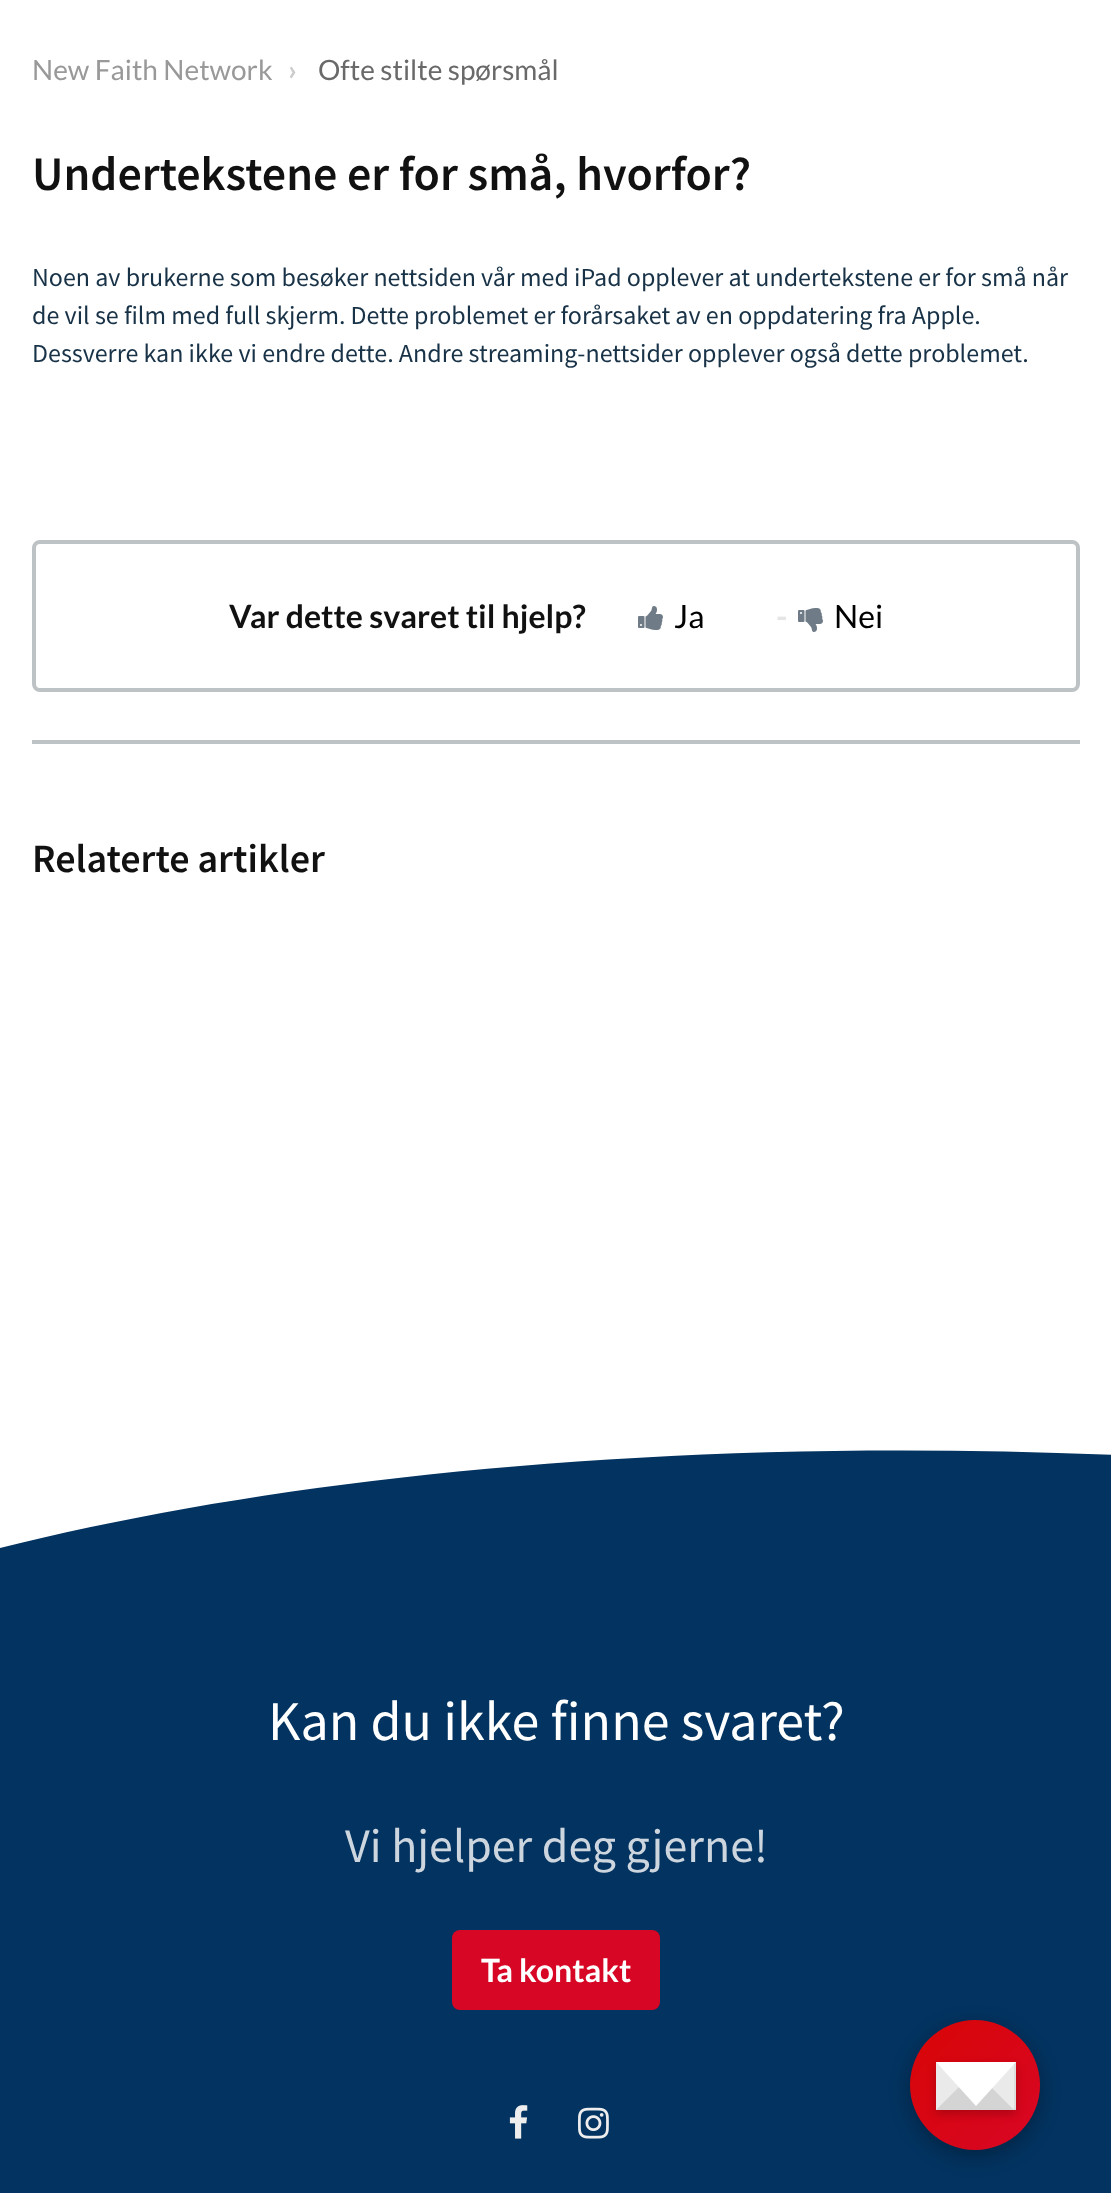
<!DOCTYPE html>
<meta charset="utf-8">
<style>body { margin: 0 } canvas { display: block }</style>
<canvas id="canvas" width="1111" height="2193"></canvas>
<script type="module">
  const canvas = document.getElementById("canvas");
  const ctx = canvas.getContext("2d");
  ctx.miterLimit = 4;
  ctx.fontKerning = "normal";
  async function loadImage(src) {
    const img = new Image();
    img.src = src;
    await img.decode();
    return img;
  }
  let gradient;

  ctx.fillStyle = "#ffffff";
  ctx.fillRect(0, 0, 1111, 2193);
  ctx.font = "28px Lato";
  ctx.fillStyle = "#999999";
  ctx.fillText("New Faith Network", 32, 80);
  ctx.font = "bold 28px Lato";
  ctx.fillStyle = "#cccccc";
  ctx.fillText("›", 288, 80);
  ctx.font = "28px Lato";
  ctx.fillStyle = "#696969";
  ctx.fillText("Ofte stilte spørsmål", 318, 80);
  ctx.font = "600 48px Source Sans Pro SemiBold";
  ctx.fillStyle = "#111111";
  ctx.fillText("Undertekstene er for små, hvorfor?", 32, 190);
  ctx.font = "26px Source Sans Pro";
  ctx.fillStyle = "#183247";
  ctx.fillText("Noen av brukerne som besøker nettsiden vår med iPad opplever at undertekstene er for små når", 32, 286);
  ctx.fillText("de vil se film med full skjerm. Dette problemet er forårsaket av en oppdatering fra Apple.", 32, 324);
  ctx.fillText("Dessverre kan ikke vi endre dette. Andre streaming-nettsider opplever også dette problemet.", 32, 362);
  ctx.beginPath();
  ctx.roundRect(34, 542, 1044, 148, 6);
  ctx.strokeStyle = "#bdc2c5";
  ctx.lineWidth = 4;
  ctx.stroke();
  ctx.font = "bold 32px Lato";
  ctx.fillStyle = "#111111";
  ctx.fillText("Var dette svaret til hjelp?", 229, 628);
  ctx.drawImage(await loadImage("img1.png"), 638, 606, 25, 24);
  ctx.font = "32px Lato";
  ctx.fillStyle = "#000000";
  ctx.fillText("Ja", 674, 628);
  ctx.font = "bold 32px Lato";
  ctx.fillStyle = "#e5e5e5";
  ctx.fillText("-", 776, 628);
  ctx.drawImage(await loadImage("img2.png"), 798, 608, 25, 24);
  ctx.font = "32px Lato";
  ctx.fillStyle = "#000000";
  ctx.fillText("Nei", 834, 628);
  ctx.fillStyle = "#bdc2c5";
  ctx.fillRect(32, 740, 1048, 4);
  ctx.font = "600 40px Source Sans Pro SemiBold";
  ctx.fillStyle = "#111111";
  ctx.fillText("Relaterte artikler", 32, 872);
  ctx.fillStyle = "#033360";
  ctx.fillRect(0, 1586, 1111, 607);
  ctx.save();
  ctx.beginPath();
  ctx.rect(0, 1386, 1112, 200);
  ctx.clip();
  ctx.beginPath();
  ctx.moveTo(0, 1548);
  ctx.bezierCurveTo(302, 1472, 741, 1427, 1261, 1463);
  ctx.bezierCurveTo(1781, 1499, 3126, 1680, 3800, 1406);
  ctx.lineTo(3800, 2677);
  ctx.lineTo(0, 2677);
  ctx.closePath();
  ctx.fill();
  ctx.restore();
  ctx.font = "56px Source Sans Pro";
  ctx.fillStyle = "#ffffff";
  ctx.fillText("Kan du ikke finne svaret?", 268, 1740);
  ctx.font = "48px Source Sans Pro";
  ctx.fillStyle = "#cdd6df";
  ctx.fillText("Vi hjelper deg gjerne!", 345, 1862);
  ctx.fillStyle = "#d80625";
  ctx.beginPath();
  ctx.roundRect(452, 1930, 208, 80, 8);
  ctx.fill();
  ctx.font = "bold 32px Lato";
  ctx.fillStyle = "#ffffff";
  ctx.fillText("Ta kontakt", 481, 1982);
  ctx.drawImage(await loadImage("img3.png"), 509, 2105, 19, 34);
  ctx.drawImage(await loadImage("img4.png"), 578, 2107, 31, 32);
  ctx.fillStyle = "rgba(0, 0, 0, 0.3)";
  ctx.filter = "blur(10px)";
  ctx.beginPath();
  ctx.roundRect(910, 2026, 130, 130, 65);
  ctx.fill();
  ctx.filter = "none";
  gradient = ctx.createLinearGradient(910, 2020, 1040, 2150);
  gradient.addColorStop(0, "#d80605");
  gradient.addColorStop(1, "#d80625");
  ctx.fillStyle = gradient;
  ctx.beginPath();
  ctx.arc(975, 2085, 65, 0, Math.PI * 2);
  ctx.fill();
  ctx.fillStyle = "rgba(0, 0, 0, 0.2)";
  ctx.filter = "blur(5px)";
  ctx.beginPath();
  ctx.rect(936, 2066, 80, 48);
  ctx.fill();
  ctx.filter = "none";
  ctx.fillStyle = "#dddddd";
  ctx.fillRect(936, 2062, 80, 48);
  ctx.fillStyle = "#d4d4d4";
  ctx.beginPath();
  ctx.moveTo(1016, 2110);
  ctx.lineTo(936, 2110);
  ctx.lineTo(976, 2066);
  ctx.closePath();
  ctx.fill();
  ctx.fillStyle = "#eaeaea";
  ctx.beginPath();
  ctx.moveTo(936, 2110);
  ctx.lineTo(936, 2062);
  ctx.lineTo(960, 2086);
  ctx.closePath();
  ctx.fill();
  ctx.beginPath();
  ctx.moveTo(1014, 2062);
  ctx.lineTo(1014, 2110);
  ctx.lineTo(990, 2086);
  ctx.closePath();
  ctx.fill();
  ctx.fillStyle = "#ffffff";
  ctx.beginPath();
  ctx.moveTo(936, 2062);
  ctx.lineTo(1016, 2062);
  ctx.lineTo(976, 2106);
  ctx.closePath();
  ctx.fill();
</script>
